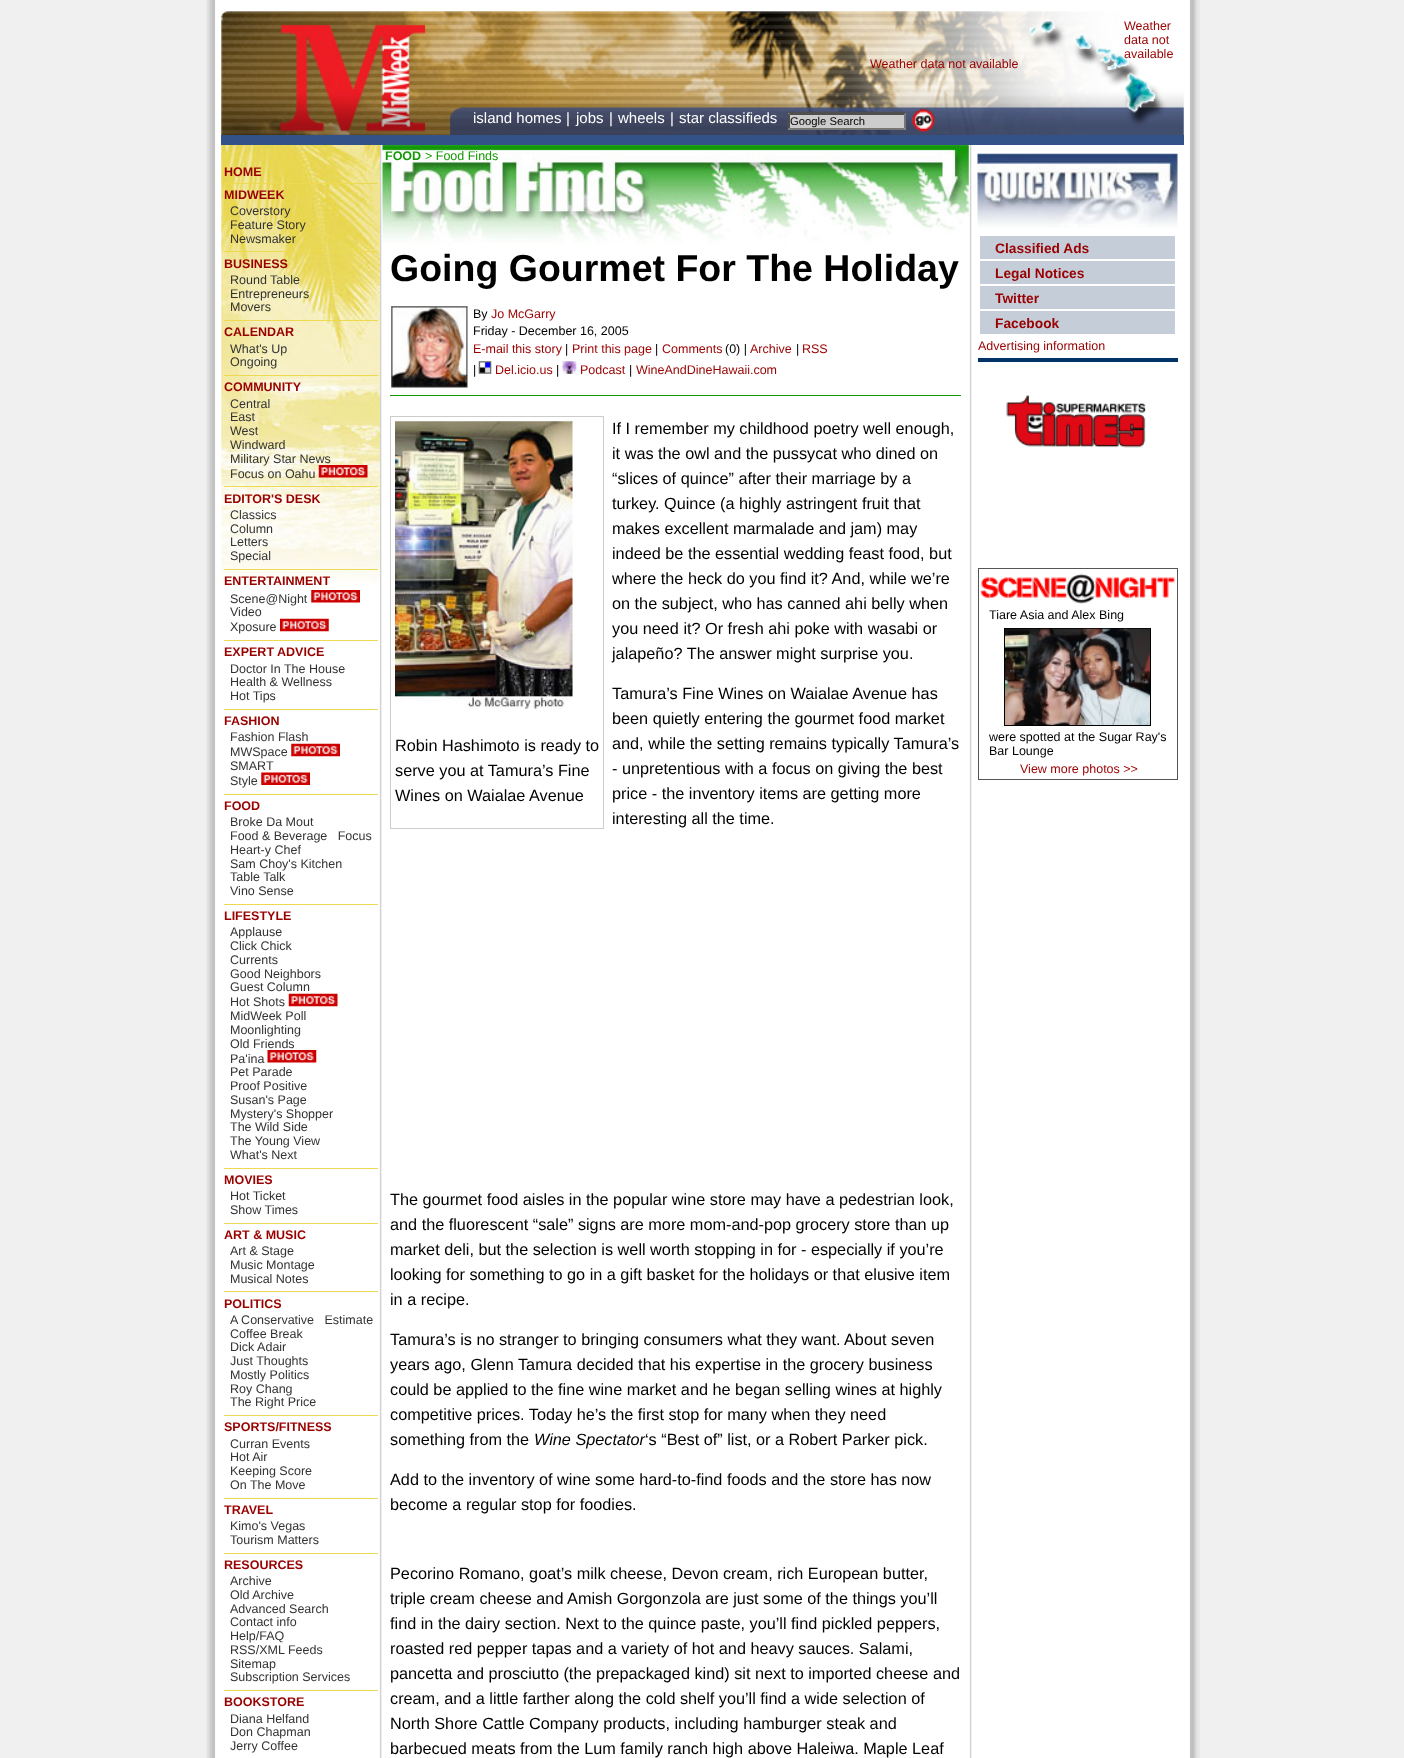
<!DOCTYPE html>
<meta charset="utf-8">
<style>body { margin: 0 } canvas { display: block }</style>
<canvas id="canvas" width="1404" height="1758"></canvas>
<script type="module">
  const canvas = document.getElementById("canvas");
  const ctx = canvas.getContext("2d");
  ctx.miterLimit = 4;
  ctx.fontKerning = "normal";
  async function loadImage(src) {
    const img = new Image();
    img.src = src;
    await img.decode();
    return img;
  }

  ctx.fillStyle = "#f0f0f0";
  ctx.fillRect(0, 0, 1404, 1758);
  ctx.drawImage(await loadImage("img1.png"), 206, 0, 994, 1758);
  ctx.fillStyle = "#ffffff";
  ctx.fillRect(379, 0, 593, 10);
  ctx.drawImage(await loadImage("img2.png"), 221, 10, 963, 125);
  ctx.font = "12.5px Liberation Sans";
  ctx.fillStyle = "#990000";
  ctx.fillText("Weather", 1124, 30);
  ctx.fillText("data not", 1124, 44);
  ctx.fillText("available", 1124, 58);
  ctx.fillText("Weather data not available", 870, 68);
  ctx.font = "15px Liberation Sans";
  ctx.fillStyle = "#ffffff";
  ctx.fillText("island homes", 473, 123);
  ctx.fillText("|", 566, 123);
  ctx.fillText("jobs", 576, 123);
  ctx.fillText("|", 609, 123);
  ctx.fillText("wheels", 618, 123);
  ctx.fillText("|", 670, 123);
  ctx.fillText("star classifieds", 679, 123);
  ctx.fillStyle = "#cccccc";
  ctx.fillRect(788, 113, 118, 17);
  ctx.fillStyle = "#4f4f4f";
  ctx.beginPath();
  ctx.moveTo(788, 112);
  ctx.lineTo(906, 112);
  ctx.lineTo(904, 115);
  ctx.lineTo(790, 115);
  ctx.closePath();
  ctx.fill();
  ctx.fillStyle = "#767676";
  ctx.beginPath();
  ctx.moveTo(906, 112.5);
  ctx.lineTo(906, 130);
  ctx.lineTo(904, 127.5);
  ctx.lineTo(904, 115);
  ctx.closePath();
  ctx.fill();
  ctx.beginPath();
  ctx.moveTo(906, 130);
  ctx.lineTo(788, 130);
  ctx.lineTo(790, 128);
  ctx.lineTo(904, 128);
  ctx.closePath();
  ctx.fill();
  ctx.fillStyle = "#4f4f4f";
  ctx.beginPath();
  ctx.moveTo(787.5, 130);
  ctx.lineTo(787.5, 112.5);
  ctx.lineTo(790, 115);
  ctx.lineTo(790, 127.5);
  ctx.closePath();
  ctx.fill();
  ctx.font = "11.25px Liberation Sans";
  ctx.fillStyle = "#000000";
  ctx.fillText("Google Search", 790, 125);
  ctx.drawImage(await loadImage("img3.png"), 912, 108, 23, 24);
  ctx.fillStyle = "#335288";
  ctx.fillRect(221, 135, 963, 10);
  ctx.drawImage(await loadImage("img4.png"), 221, 145, 159, 537);
  ctx.fillStyle = "#edd952";
  ctx.fillRect(224, 183, 154, 1);
  ctx.font = "bold 12.5px Liberation Sans";
  ctx.fillStyle = "#990000";
  ctx.fillText("HOME", 224, 176);
  ctx.fillStyle = "#edd952";
  ctx.fillRect(224, 251, 154, 1);
  ctx.fillStyle = "#990000";
  ctx.fillText("MIDWEEK", 224, 199);
  ctx.font = "12.5px Liberation Sans";
  ctx.fillStyle = "#333333";
  ctx.fillText("Coverstory", 230, 215);
  ctx.fillText("Feature Story", 230, 229);
  ctx.fillText("Newsmaker", 230, 243);
  ctx.fillStyle = "#edd952";
  ctx.fillRect(224, 320, 154, 1);
  ctx.font = "bold 12.5px Liberation Sans";
  ctx.fillStyle = "#990000";
  ctx.fillText("BUSINESS", 224, 268);
  ctx.font = "12.5px Liberation Sans";
  ctx.fillStyle = "#333333";
  ctx.fillText("Round Table", 230, 284);
  ctx.fillText("Entrepreneurs", 230, 298);
  ctx.fillText("Movers", 230, 311);
  ctx.fillStyle = "#edd952";
  ctx.fillRect(224, 375, 154, 1);
  ctx.font = "bold 12.5px Liberation Sans";
  ctx.fillStyle = "#990000";
  ctx.fillText("CALENDAR", 224, 336);
  ctx.font = "12.5px Liberation Sans";
  ctx.fillStyle = "#333333";
  ctx.fillText("What's Up", 230, 353);
  ctx.fillText("Ongoing", 230, 366);
  ctx.fillStyle = "#edd952";
  ctx.fillRect(224, 486, 154, 1);
  ctx.font = "bold 12.5px Liberation Sans";
  ctx.fillStyle = "#990000";
  ctx.fillText("COMMUNITY", 224, 391);
  ctx.font = "12.5px Liberation Sans";
  ctx.fillStyle = "#333333";
  ctx.fillText("Central", 230, 408);
  ctx.fillText("East", 230, 421);
  ctx.fillText("West", 230, 435);
  ctx.fillText("Windward", 230, 449);
  ctx.fillText("Military Star News", 230, 463);
  ctx.fillText("Focus on Oahu", 230, 478);
  ctx.drawImage(await loadImage("img5.png"), 318, 465, 50, 13);
  ctx.fillStyle = "#edd952";
  ctx.fillRect(224, 569, 154, 1);
  ctx.font = "bold 12.5px Liberation Sans";
  ctx.fillStyle = "#990000";
  ctx.fillText("EDITOR'S DESK", 224, 503);
  ctx.font = "12.5px Liberation Sans";
  ctx.fillStyle = "#333333";
  ctx.fillText("Classics", 230, 519);
  ctx.fillText("Column", 230, 533);
  ctx.fillText("Letters", 230, 546);
  ctx.fillText("Special", 230, 560);
  ctx.fillStyle = "#edd952";
  ctx.fillRect(224, 640, 154, 1);
  ctx.font = "bold 12.5px Liberation Sans";
  ctx.fillStyle = "#990000";
  ctx.fillText("ENTERTAINMENT", 224, 585);
  ctx.font = "12.5px Liberation Sans";
  ctx.fillStyle = "#333333";
  ctx.fillText("Scene@Night", 230, 603);
  ctx.drawImage(await loadImage("img6.png"), 311, 590, 49, 13);
  ctx.fillText("Video", 230, 616);
  ctx.fillText("Xposure", 230, 631);
  ctx.drawImage(await loadImage("img7.png"), 280, 618, 49, 14);
  ctx.fillStyle = "#edd952";
  ctx.fillRect(224, 709, 154, 1);
  ctx.font = "bold 12.5px Liberation Sans";
  ctx.fillStyle = "#990000";
  ctx.fillText("EXPERT ADVICE", 224, 656);
  ctx.font = "12.5px Liberation Sans";
  ctx.fillStyle = "#333333";
  ctx.fillText("Doctor In The House", 230, 673);
  ctx.fillText("Health & Wellness", 230, 686);
  ctx.fillText("Hot Tips", 230, 700);
  ctx.fillStyle = "#edd952";
  ctx.fillRect(224, 794, 154, 1);
  ctx.font = "bold 12.5px Liberation Sans";
  ctx.fillStyle = "#990000";
  ctx.fillText("FASHION", 224, 725);
  ctx.font = "12.5px Liberation Sans";
  ctx.fillStyle = "#333333";
  ctx.fillText("Fashion Flash", 230, 741);
  ctx.fillText("MWSpace", 230, 756);
  ctx.drawImage(await loadImage("img8.png"), 291, 743, 49, 14);
  ctx.fillText("SMART", 230, 770);
  ctx.fillText("Style", 230, 785);
  ctx.drawImage(await loadImage("img9.png"), 261, 772, 49, 13);
  ctx.fillStyle = "#edd952";
  ctx.fillRect(224, 904, 154, 1);
  ctx.font = "bold 12.5px Liberation Sans";
  ctx.fillStyle = "#990000";
  ctx.fillText("FOOD", 224, 810);
  ctx.font = "12.5px Liberation Sans";
  ctx.fillStyle = "#333333";
  ctx.fillText("Broke Da Mout", 230, 826);
  ctx.fillText("Food & Beverage   Focus", 230, 840);
  ctx.fillText("Heart-y Chef", 230, 854);
  ctx.fillText("Sam Choy's Kitchen", 230, 868);
  ctx.fillText("Table Talk", 230, 881);
  ctx.fillText("Vino Sense", 230, 895);
  ctx.fillStyle = "#edd952";
  ctx.fillRect(224, 1168, 154, 1);
  ctx.font = "bold 12.5px Liberation Sans";
  ctx.fillStyle = "#990000";
  ctx.fillText("LIFESTYLE", 224, 920);
  ctx.font = "12.5px Liberation Sans";
  ctx.fillStyle = "#333333";
  ctx.fillText("Applause", 230, 936);
  ctx.fillText("Click Chick", 230, 950);
  ctx.fillText("Currents", 230, 964);
  ctx.fillText("Good Neighbors", 230, 978);
  ctx.fillText("Guest Column", 230, 991);
  ctx.fillText("Hot Shots", 230, 1006);
  ctx.drawImage(await loadImage("img10.png"), 288, 993, 50, 14);
  ctx.fillText("MidWeek Poll", 230, 1020);
  ctx.fillText("Moonlighting", 230, 1034);
  ctx.fillText("Old Friends", 230, 1048);
  ctx.fillText("Pa'ina", 230, 1063);
  ctx.drawImage(await loadImage("img11.png"), 267, 1050, 50, 13);
  ctx.fillText("Pet Parade", 230, 1076);
  ctx.fillText("Proof Positive", 230, 1090);
  ctx.fillText("Susan's Page", 230, 1104);
  ctx.fillText("Mystery's Shopper", 230, 1118);
  ctx.fillText("The Wild Side", 230, 1131);
  ctx.fillText("The Young View", 230, 1145);
  ctx.fillText("What's Next", 230, 1159);
  ctx.fillStyle = "#edd952";
  ctx.fillRect(224, 1223, 154, 1);
  ctx.font = "bold 12.5px Liberation Sans";
  ctx.fillStyle = "#990000";
  ctx.fillText("MOVIES", 224, 1184);
  ctx.font = "12.5px Liberation Sans";
  ctx.fillStyle = "#333333";
  ctx.fillText("Hot Ticket", 230, 1200);
  ctx.fillText("Show Times", 230, 1214);
  ctx.fillStyle = "#edd952";
  ctx.fillRect(224, 1291, 154, 1);
  ctx.font = "bold 12.5px Liberation Sans";
  ctx.fillStyle = "#990000";
  ctx.fillText("ART & MUSIC", 224, 1239);
  ctx.font = "12.5px Liberation Sans";
  ctx.fillStyle = "#333333";
  ctx.fillText("Art & Stage", 230, 1255);
  ctx.fillText("Music Montage", 230, 1269);
  ctx.fillText("Musical Notes", 230, 1283);
  ctx.fillStyle = "#edd952";
  ctx.fillRect(224, 1415, 154, 1);
  ctx.font = "bold 12.5px Liberation Sans";
  ctx.fillStyle = "#990000";
  ctx.fillText("POLITICS", 224, 1308);
  ctx.font = "12.5px Liberation Sans";
  ctx.fillStyle = "#333333";
  ctx.fillText("A Conservative   Estimate", 230, 1324);
  ctx.fillText("Coffee Break", 230, 1338);
  ctx.fillText("Dick Adair", 230, 1351);
  ctx.fillText("Just Thoughts", 230, 1365);
  ctx.fillText("Mostly Politics", 230, 1379);
  ctx.fillText("Roy Chang", 230, 1393);
  ctx.fillText("The Right Price", 230, 1406);
  ctx.fillStyle = "#edd952";
  ctx.fillRect(224, 1498, 154, 1);
  ctx.font = "bold 12.5px Liberation Sans";
  ctx.fillStyle = "#990000";
  ctx.fillText("SPORTS/FITNESS", 224, 1431);
  ctx.font = "12.5px Liberation Sans";
  ctx.fillStyle = "#333333";
  ctx.fillText("Curran Events", 230, 1448);
  ctx.fillText("Hot Air", 230, 1461);
  ctx.fillText("Keeping Score", 230, 1475);
  ctx.fillText("On The Move", 230, 1489);
  ctx.fillStyle = "#edd952";
  ctx.fillRect(224, 1553, 154, 1);
  ctx.font = "bold 12.5px Liberation Sans";
  ctx.fillStyle = "#990000";
  ctx.fillText("TRAVEL", 224, 1514);
  ctx.font = "12.5px Liberation Sans";
  ctx.fillStyle = "#333333";
  ctx.fillText("Kimo's Vegas", 230, 1530);
  ctx.fillText("Tourism Matters", 230, 1544);
  ctx.fillStyle = "#edd952";
  ctx.fillRect(224, 1690, 154, 1);
  ctx.font = "bold 12.5px Liberation Sans";
  ctx.fillStyle = "#990000";
  ctx.fillText("RESOURCES", 224, 1569);
  ctx.font = "12.5px Liberation Sans";
  ctx.fillStyle = "#333333";
  ctx.fillText("Archive", 230, 1585);
  ctx.fillText("Old Archive", 230, 1599);
  ctx.fillText("Advanced Search", 230, 1613);
  ctx.fillText("Contact info", 230, 1626);
  ctx.fillText("Help/FAQ", 230, 1640);
  ctx.fillText("RSS/XML Feeds", 230, 1654);
  ctx.fillText("Sitemap", 230, 1668);
  ctx.fillText("Subscription Services", 230, 1681);
  ctx.font = "bold 12.5px Liberation Sans";
  ctx.fillStyle = "#990000";
  ctx.fillText("BOOKSTORE", 224, 1706);
  ctx.font = "12.5px Liberation Sans";
  ctx.fillStyle = "#333333";
  ctx.fillText("Diana Helfand", 230, 1723);
  ctx.fillText("Don Chapman", 230, 1736);
  ctx.fillText("Jerry Coffee", 230, 1750);
  ctx.drawImage(await loadImage("img12.png"), 382, 145, 587, 99);
  ctx.font = "bold 12.5px Liberation Sans";
  ctx.fillStyle = "#139906";
  ctx.fillText("FOOD", 385, 160);
  ctx.font = "12.5px Liberation Sans";
  ctx.fillText("> Food Finds", 425, 160);
  ctx.font = "bold 37.5px Liberation Sans";
  ctx.fillStyle = "#000000";
  ctx.fillText("Going Gourmet For The Holiday", 390, 281);
  ctx.fillStyle = "#139906";
  ctx.fillRect(390, 395, 571, 1);
  ctx.drawImage(await loadImage("img13.png"), 391, 306, 77, 82);
  ctx.font = "12.5px Liberation Sans";
  ctx.fillStyle = "#000000";
  ctx.fillText("By", 473, 318);
  ctx.fillStyle = "#990000";
  ctx.fillText("Jo McGarry", 491, 318);
  ctx.fillStyle = "#000000";
  ctx.fillText("Friday - December 16, 2005", 473, 335);
  ctx.fillStyle = "#990000";
  ctx.fillText("E-mail this story", 473, 353);
  ctx.fillStyle = "#000000";
  ctx.fillText("|", 565, 353);
  ctx.fillStyle = "#990000";
  ctx.fillText("Print this page", 572, 353);
  ctx.fillStyle = "#000000";
  ctx.fillText("|", 655, 353);
  ctx.fillStyle = "#990000";
  ctx.fillText("Comments", 662, 353);
  ctx.fillStyle = "#000000";
  ctx.fillText("(0) |", 725, 353);
  ctx.fillStyle = "#990000";
  ctx.fillText("Archive", 750, 353);
  ctx.fillStyle = "#000000";
  ctx.fillText("|", 796, 353);
  ctx.fillStyle = "#990000";
  ctx.fillText("RSS", 802, 353);
  ctx.fillStyle = "#000000";
  ctx.fillText("|", 473, 374);
  ctx.drawImage(await loadImage("img14.png"), 478, 361, 14, 13);
  ctx.fillStyle = "#990000";
  ctx.fillText("Del.icio.us", 495, 374);
  ctx.fillStyle = "#000000";
  ctx.fillText("|", 556, 374);
  ctx.drawImage(await loadImage("img15.png"), 562, 361, 15, 13);
  ctx.fillStyle = "#990000";
  ctx.fillText("Podcast", 580, 374);
  ctx.fillStyle = "#000000";
  ctx.fillText("|", 629, 374);
  ctx.fillStyle = "#990000";
  ctx.fillText("WineAndDineHawaii.com", 636, 374);
  ctx.font = "16.25px Liberation Sans";
  ctx.fillStyle = "#000000";
  ctx.fillText("If I remember my childhood poetry well enough,", 612, 434);
  ctx.fillText("it was the owl and the pussycat who dined on", 612, 459);
  ctx.fillText("“slices of quince” after their marriage by a", 612, 484);
  ctx.fillText("turkey. Quince (a highly astringent fruit that", 612, 509);
  ctx.fillText("makes excellent marmalade and jam) may", 612, 534);
  ctx.fillText("indeed be the essential wedding feast food, but", 612, 559);
  ctx.fillText("where the heck do you find it? And, while we’re", 612, 584);
  ctx.fillText("on the subject, who has canned ahi belly when", 612, 609);
  ctx.fillText("you need it? Or fresh ahi poke with wasabi or", 612, 634);
  ctx.fillText("jalapeño? The answer might surprise you.", 612, 659);
  ctx.strokeStyle = "#cccccc";
  ctx.strokeRect(390.5, 416.5, 213, 412);
  ctx.drawImage(await loadImage("img16.png"), 395, 421, 178, 288);
  ctx.fillText("Robin Hashimoto is ready to", 395, 751);
  ctx.fillText("serve you at Tamura’s Fine", 395, 776);
  ctx.fillText("Wines on Waialae Avenue", 395, 801);
  ctx.fillText("Tamura’s Fine Wines on Waialae Avenue has", 612, 699);
  ctx.fillText("been quietly entering the gourmet food market", 612, 724);
  ctx.fillText("and, while the setting remains typically Tamura’s", 612, 749);
  ctx.fillText("- unpretentious with a focus on giving the best", 612, 774);
  ctx.fillText("price - the inventory items are getting more", 612, 799);
  ctx.fillText("interesting all the time.", 612, 824);
  ctx.fillText("The gourmet food aisles in the popular wine store may have a pedestrian look,", 390, 1205);
  ctx.fillText("and the fluorescent “sale” signs are more mom-and-pop grocery store than up", 390, 1230);
  ctx.fillText("market deli, but the selection is well worth stopping in for - especially if you’re", 390, 1255);
  ctx.fillText("looking for something to go in a gift basket for the holidays or that elusive item", 390, 1280);
  ctx.fillText("in a recipe.", 390, 1305);
  ctx.fillText("Tamura’s is no stranger to bringing consumers what they want. About seven", 390, 1345);
  ctx.fillText("years ago, Glenn Tamura decided that his expertise in the grocery business", 390, 1370);
  ctx.fillText("could be applied to the fine wine market and he began selling wines at highly", 390, 1395);
  ctx.fillText("competitive prices. Today he’s the first stop for many when they need", 390, 1420);
  ctx.fillText("something from the", 390, 1445);
  ctx.font = "italic 16.25px Liberation Sans";
  ctx.fillText("Wine Spectator", 534, 1445);
  ctx.font = "16.25px Liberation Sans";
  ctx.fillText("‘s “Best of” list, or a Robert Parker pick.", 645, 1445);
  ctx.fillText("Add to the inventory of wine some hard-to-find foods and the store has now", 390, 1485);
  ctx.fillText("become a regular stop for foodies.", 390, 1510);
  ctx.fillText("Pecorino Romano, goat’s milk cheese, Devon cream, rich European butter,", 390, 1579);
  ctx.fillText("triple cream cheese and Amish Gorgonzola are just some of the things you’ll", 390, 1604);
  ctx.fillText("find in the dairy section. Next to the quince paste, you’ll find pickled peppers,", 390, 1629);
  ctx.fillText("roasted red pepper tapas and a variety of hot and heavy sauces. Salami,", 390, 1654);
  ctx.fillText("pancetta and prosciutto (the prepackaged kind) sit next to imported cheese and", 390, 1679);
  ctx.fillText("cream, and a little farther along the cold shelf you’ll find a wide selection of", 390, 1704);
  ctx.fillText("North Shore Cattle Company products, including hamburger steak and", 390, 1729);
  ctx.fillText("barbecued meats from the Lum family ranch high above Haleiwa. Maple Leaf", 390, 1754);
  ctx.fillStyle = "#003366";
  ctx.fillRect(978, 358, 200, 4);
  ctx.drawImage(await loadImage("img17.png"), 977, 153, 201, 75);
  ctx.fillStyle = "#c5cdd9";
  ctx.fillRect(980, 236, 195, 23);
  ctx.font = "bold 13.75px Liberation Sans";
  ctx.fillStyle = "#990000";
  ctx.fillText("Classified Ads", 995, 253);
  ctx.fillStyle = "#c5cdd9";
  ctx.fillRect(980, 261, 195, 23);
  ctx.fillStyle = "#990000";
  ctx.fillText("Legal Notices", 995, 278);
  ctx.fillStyle = "#c5cdd9";
  ctx.fillRect(980, 286, 195, 23);
  ctx.fillStyle = "#990000";
  ctx.fillText("Twitter", 995, 303);
  ctx.fillStyle = "#c5cdd9";
  ctx.fillRect(980, 311, 195, 23);
  ctx.fillStyle = "#990000";
  ctx.fillText("Facebook", 995, 328);
  ctx.font = "12.5px Liberation Sans";
  ctx.fillText("Advertising information", 978, 350);
  ctx.drawImage(await loadImage("img18.png"), 1006, 394, 140, 54);
  ctx.strokeStyle = "#545454";
  ctx.strokeRect(978.5, 568.5, 199, 211);
  ctx.drawImage(await loadImage("img19.png"), 980, 573, 195, 31);
  ctx.fillStyle = "#000000";
  ctx.fillText("Tiare Asia and Alex Bing", 989, 619);
  ctx.strokeStyle = "#000000";
  ctx.strokeRect(1004.5, 628.5, 146, 97);
  ctx.drawImage(await loadImage("img20.png"), 1005, 628, 145, 97);
  ctx.fillText("were spotted at the Sugar Ray's", 989, 741);
  ctx.fillText("Bar Lounge", 989, 755);
  ctx.fillStyle = "#990000";
  ctx.fillText("View more photos >>", 1020, 773);
</script>
